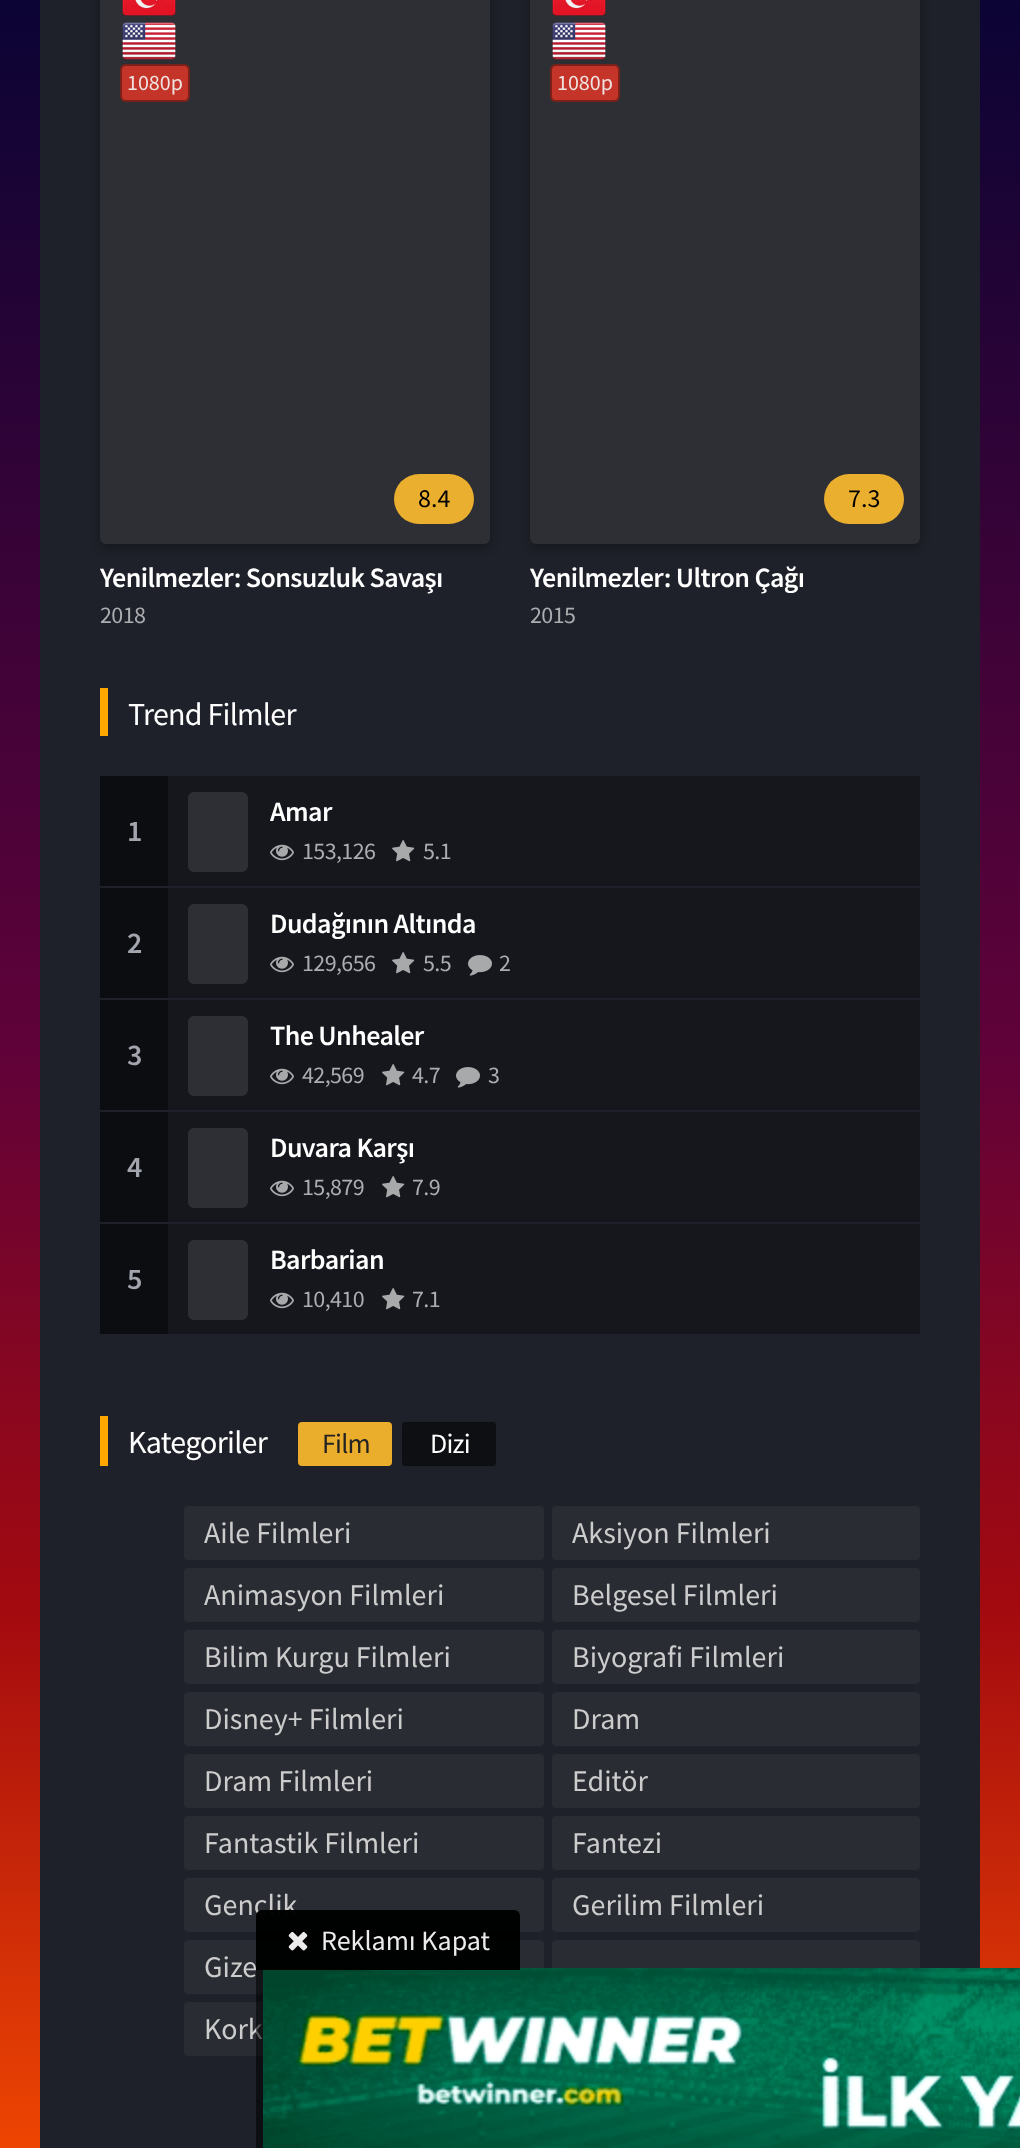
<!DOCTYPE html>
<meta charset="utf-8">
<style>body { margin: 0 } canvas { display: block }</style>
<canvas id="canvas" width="1020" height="2148"></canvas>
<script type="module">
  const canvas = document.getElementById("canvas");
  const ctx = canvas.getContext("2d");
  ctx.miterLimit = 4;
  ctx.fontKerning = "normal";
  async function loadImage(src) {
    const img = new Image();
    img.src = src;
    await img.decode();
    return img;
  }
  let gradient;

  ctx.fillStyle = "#ffffff";
  ctx.fillRect(0, 0, 1020, 2148);
  gradient = ctx.createLinearGradient(510, 0, 510, 2148);
  gradient.addColorStop(0, "#0b0435");
  gradient.addColorStop(0.49, "#600239");
  gradient.addColorStop(0.75, "#a30a0f");
  gradient.addColorStop(1, "#ee4502");
  ctx.fillStyle = gradient;
  ctx.fillRect(0, 0, 1020, 2148);
  ctx.fillStyle = "#1e2129";
  ctx.fillRect(40, 0, 940, 2148);
  ctx.fillStyle = "rgba(0, 0, 0, 0.28)";
  ctx.filter = "blur(5px)";
  ctx.beginPath();
  ctx.roundRect(100, -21, 390, 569, 6);
  ctx.fill();
  ctx.filter = "none";
  ctx.fillStyle = "#2d2f34";
  ctx.beginPath();
  ctx.roundRect(100, -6, 390, 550, 6);
  ctx.fill();
  ctx.drawImage(await loadImage("img1.png"), 122, 0, 54, 16);
  ctx.drawImage(await loadImage("img2.png"), 122, 22, 54, 38);
  ctx.fillStyle = "#c43428";
  ctx.beginPath();
  ctx.roundRect(120, 64, 70, 38, 6);
  ctx.fill();
  ctx.beginPath();
  ctx.roundRect(121, 65, 68, 36, 5);
  ctx.strokeStyle = "rgba(2, 2, 3, 0.38)";
  ctx.lineWidth = 2;
  ctx.stroke();
  ctx.font = "22px Source Sans Pro";
  ctx.fillStyle = "#f0e2e1";
  ctx.fillText("1080p", 127, 90);
  ctx.fillStyle = "#eaaf2f";
  ctx.beginPath();
  ctx.roundRect(394, 474, 80, 50, 25);
  ctx.fill();
  ctx.font = "26px Source Sans Pro";
  ctx.fillStyle = "#000000";
  ctx.fillText("8.4", 418, 507);
  ctx.letterSpacing = "-0.6px";
  ctx.font = "600 28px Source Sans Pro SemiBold";
  ctx.fillStyle = "#ffffff";
  ctx.fillText("Yenilmezler: Sonsuzluk Savaşı", 100, 587);
  ctx.font = "24px Source Sans Pro";
  ctx.fillStyle = "#acadb0";
  ctx.fillText("2018", 100, 623);
  ctx.fillStyle = "rgba(0, 0, 0, 0.28)";
  ctx.filter = "blur(5px)";
  ctx.beginPath();
  ctx.roundRect(530, -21, 390, 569, 6);
  ctx.fill();
  ctx.filter = "none";
  ctx.fillStyle = "#2d2f34";
  ctx.beginPath();
  ctx.roundRect(530, -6, 390, 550, 6);
  ctx.fill();
  ctx.drawImage(await loadImage("img1.png"), 552, 0, 54, 16);
  ctx.drawImage(await loadImage("img2.png"), 552, 22, 54, 38);
  ctx.fillStyle = "#c43428";
  ctx.beginPath();
  ctx.roundRect(550, 64, 70, 38, 6);
  ctx.fill();
  ctx.beginPath();
  ctx.roundRect(551, 65, 68, 36, 5);
  ctx.stroke();
  ctx.letterSpacing = "0px";
  ctx.font = "22px Source Sans Pro";
  ctx.fillStyle = "#f0e2e1";
  ctx.fillText("1080p", 557, 90);
  ctx.fillStyle = "#eaaf2f";
  ctx.beginPath();
  ctx.roundRect(824, 474, 80, 50, 25);
  ctx.fill();
  ctx.font = "26px Source Sans Pro";
  ctx.fillStyle = "#000000";
  ctx.fillText("7.3", 848, 507);
  ctx.letterSpacing = "-0.6px";
  ctx.font = "600 28px Source Sans Pro SemiBold";
  ctx.fillStyle = "#ffffff";
  ctx.fillText("Yenilmezler: Ultron Çağı", 530, 587);
  ctx.font = "24px Source Sans Pro";
  ctx.fillStyle = "#acadb0";
  ctx.fillText("2015", 530, 623);
  ctx.fillStyle = "#ffa900";
  ctx.fillRect(100, 688, 8, 48);
  ctx.letterSpacing = "-0.75px";
  ctx.font = "32px Source Sans Pro";
  ctx.fillStyle = "#ffffff";
  ctx.fillText("Trend Filmler", 128, 725);
  ctx.fillStyle = "#15171d";
  ctx.fillRect(168, 776, 752, 110);
  ctx.fillStyle = "#0b0d10";
  ctx.fillRect(100, 776, 68, 110);
  ctx.letterSpacing = "-0.6px";
  ctx.font = "600 30px Source Sans Pro SemiBold";
  ctx.fillStyle = "#a3a5ae";
  ctx.fillText("1", 127, 841);
  ctx.fillStyle = "#2d2f34";
  ctx.beginPath();
  ctx.roundRect(188, 792, 60, 80, 6);
  ctx.fill();
  ctx.font = "600 28px Source Sans Pro SemiBold";
  ctx.fillStyle = "#ffffff";
  ctx.fillText("Amar", 270, 821);
  ctx.drawImage(await loadImage("img3.png"), 270, 844, 24, 17);
  ctx.font = "24px Source Sans Pro";
  ctx.fillStyle = "#acadb0";
  ctx.fillText("153,126", 302, 859);
  ctx.drawImage(await loadImage("img4.png"), 392, 840, 23, 22);
  ctx.fillText("5.1", 423, 859);
  ctx.fillStyle = "#15171d";
  ctx.fillRect(168, 888, 752, 110);
  ctx.fillStyle = "#0b0d10";
  ctx.fillRect(100, 888, 68, 110);
  ctx.font = "600 30px Source Sans Pro SemiBold";
  ctx.fillStyle = "#a3a5ae";
  ctx.fillText("2", 127, 953);
  ctx.fillStyle = "#2d2f34";
  ctx.beginPath();
  ctx.roundRect(188, 904, 60, 80, 6);
  ctx.fill();
  ctx.font = "600 28px Source Sans Pro SemiBold";
  ctx.fillStyle = "#ffffff";
  ctx.fillText("Dudağının Altında", 270, 933);
  ctx.drawImage(await loadImage("img3.png"), 270, 956, 24, 17);
  ctx.font = "24px Source Sans Pro";
  ctx.fillStyle = "#acadb0";
  ctx.fillText("129,656", 302, 971);
  ctx.drawImage(await loadImage("img4.png"), 392, 952, 23, 22);
  ctx.fillText("5.5", 423, 971);
  ctx.drawImage(await loadImage("img5.png"), 468, 955, 24, 21);
  ctx.fillText("2", 499, 971);
  ctx.fillStyle = "#15171d";
  ctx.fillRect(168, 1000, 752, 110);
  ctx.fillStyle = "#0b0d10";
  ctx.fillRect(100, 1000, 68, 110);
  ctx.font = "600 30px Source Sans Pro SemiBold";
  ctx.fillStyle = "#a3a5ae";
  ctx.fillText("3", 127, 1065);
  ctx.fillStyle = "#2d2f34";
  ctx.beginPath();
  ctx.roundRect(188, 1016, 60, 80, 6);
  ctx.fill();
  ctx.font = "600 28px Source Sans Pro SemiBold";
  ctx.fillStyle = "#ffffff";
  ctx.fillText("The Unhealer", 270, 1045);
  ctx.drawImage(await loadImage("img3.png"), 270, 1068, 24, 17);
  ctx.font = "24px Source Sans Pro";
  ctx.fillStyle = "#acadb0";
  ctx.fillText("42,569", 302, 1083);
  ctx.drawImage(await loadImage("img4.png"), 382, 1064, 23, 22);
  ctx.fillText("4.7", 412, 1083);
  ctx.drawImage(await loadImage("img5.png"), 456, 1067, 24, 21);
  ctx.fillText("3", 488, 1083);
  ctx.fillStyle = "#15171d";
  ctx.fillRect(168, 1112, 752, 110);
  ctx.fillStyle = "#0b0d10";
  ctx.fillRect(100, 1112, 68, 110);
  ctx.font = "600 30px Source Sans Pro SemiBold";
  ctx.fillStyle = "#a3a5ae";
  ctx.fillText("4", 127, 1177);
  ctx.fillStyle = "#2d2f34";
  ctx.beginPath();
  ctx.roundRect(188, 1128, 60, 80, 6);
  ctx.fill();
  ctx.font = "600 28px Source Sans Pro SemiBold";
  ctx.fillStyle = "#ffffff";
  ctx.fillText("Duvara Karşı", 270, 1157);
  ctx.drawImage(await loadImage("img3.png"), 270, 1180, 24, 17);
  ctx.font = "24px Source Sans Pro";
  ctx.fillStyle = "#acadb0";
  ctx.fillText("15,879", 302, 1195);
  ctx.drawImage(await loadImage("img4.png"), 382, 1176, 23, 22);
  ctx.fillText("7.9", 412, 1195);
  ctx.fillStyle = "#15171d";
  ctx.fillRect(168, 1224, 752, 110);
  ctx.fillStyle = "#0b0d10";
  ctx.fillRect(100, 1224, 68, 110);
  ctx.font = "600 30px Source Sans Pro SemiBold";
  ctx.fillStyle = "#a3a5ae";
  ctx.fillText("5", 127, 1289);
  ctx.fillStyle = "#2d2f34";
  ctx.beginPath();
  ctx.roundRect(188, 1240, 60, 80, 6);
  ctx.fill();
  ctx.font = "600 28px Source Sans Pro SemiBold";
  ctx.fillStyle = "#ffffff";
  ctx.fillText("Barbarian", 270, 1269);
  ctx.drawImage(await loadImage("img3.png"), 270, 1292, 24, 17);
  ctx.font = "24px Source Sans Pro";
  ctx.fillStyle = "#acadb0";
  ctx.fillText("10,410", 302, 1307);
  ctx.drawImage(await loadImage("img4.png"), 382, 1288, 23, 22);
  ctx.fillText("7.1", 412, 1307);
  ctx.fillStyle = "#ffa900";
  ctx.fillRect(100, 1416, 8, 50);
  ctx.letterSpacing = "-0.75px";
  ctx.font = "32px Source Sans Pro";
  ctx.fillStyle = "#ffffff";
  ctx.fillText("Kategoriler", 128, 1453);
  ctx.fillStyle = "#eaad2c";
  ctx.beginPath();
  ctx.roundRect(298, 1422, 94, 44, 4);
  ctx.fill();
  ctx.font = "28px Source Sans Pro";
  ctx.fillStyle = "#222222";
  ctx.fillText("Film", 322, 1453);
  ctx.fillStyle = "#0d0f12";
  ctx.beginPath();
  ctx.roundRect(402, 1422, 94, 44, 4);
  ctx.fill();
  ctx.fillStyle = "#ffffff";
  ctx.fillText("Dizi", 430, 1453);
  ctx.fillStyle = "#292c33";
  ctx.beginPath();
  ctx.roundRect(184, 1506, 360, 54, 4);
  ctx.fill();
  ctx.letterSpacing = "0px";
  ctx.font = "30px Source Sans Pro";
  ctx.fillStyle = "#cccccc";
  ctx.fillText("Aile Filmleri", 204, 1543);
  ctx.fillStyle = "#292c33";
  ctx.beginPath();
  ctx.roundRect(552, 1506, 368, 54, 4);
  ctx.fill();
  ctx.fillStyle = "#cccccc";
  ctx.fillText("Aksiyon Filmleri", 572, 1543);
  ctx.fillStyle = "#292c33";
  ctx.beginPath();
  ctx.roundRect(184, 1568, 360, 54, 4);
  ctx.fill();
  ctx.fillStyle = "#cccccc";
  ctx.fillText("Animasyon Filmleri", 204, 1605);
  ctx.fillStyle = "#292c33";
  ctx.beginPath();
  ctx.roundRect(552, 1568, 368, 54, 4);
  ctx.fill();
  ctx.fillStyle = "#cccccc";
  ctx.fillText("Belgesel Filmleri", 572, 1605);
  ctx.fillStyle = "#292c33";
  ctx.beginPath();
  ctx.roundRect(184, 1630, 360, 54, 4);
  ctx.fill();
  ctx.fillStyle = "#cccccc";
  ctx.fillText("Bilim Kurgu Filmleri", 204, 1667);
  ctx.fillStyle = "#292c33";
  ctx.beginPath();
  ctx.roundRect(552, 1630, 368, 54, 4);
  ctx.fill();
  ctx.fillStyle = "#cccccc";
  ctx.fillText("Biyografi Filmleri", 572, 1667);
  ctx.fillStyle = "#292c33";
  ctx.beginPath();
  ctx.roundRect(184, 1692, 360, 54, 4);
  ctx.fill();
  ctx.fillStyle = "#cccccc";
  ctx.fillText("Disney+ Filmleri", 204, 1729);
  ctx.fillStyle = "#292c33";
  ctx.beginPath();
  ctx.roundRect(552, 1692, 368, 54, 4);
  ctx.fill();
  ctx.fillStyle = "#cccccc";
  ctx.fillText("Dram", 572, 1729);
  ctx.fillStyle = "#292c33";
  ctx.beginPath();
  ctx.roundRect(184, 1754, 360, 54, 4);
  ctx.fill();
  ctx.fillStyle = "#cccccc";
  ctx.fillText("Dram Filmleri", 204, 1791);
  ctx.fillStyle = "#292c33";
  ctx.beginPath();
  ctx.roundRect(552, 1754, 368, 54, 4);
  ctx.fill();
  ctx.fillStyle = "#cccccc";
  ctx.fillText("Editör", 572, 1791);
  ctx.fillStyle = "#292c33";
  ctx.beginPath();
  ctx.roundRect(184, 1816, 360, 54, 4);
  ctx.fill();
  ctx.fillStyle = "#cccccc";
  ctx.fillText("Fantastik Filmleri", 204, 1853);
  ctx.fillStyle = "#292c33";
  ctx.beginPath();
  ctx.roundRect(552, 1816, 368, 54, 4);
  ctx.fill();
  ctx.fillStyle = "#cccccc";
  ctx.fillText("Fantezi", 572, 1853);
  ctx.fillStyle = "#292c33";
  ctx.beginPath();
  ctx.roundRect(184, 1878, 360, 54, 4);
  ctx.fill();
  ctx.fillStyle = "#cccccc";
  ctx.fillText("Gençlik", 204, 1915);
  ctx.fillStyle = "#292c33";
  ctx.beginPath();
  ctx.roundRect(552, 1878, 368, 54, 4);
  ctx.fill();
  ctx.fillStyle = "#cccccc";
  ctx.fillText("Gerilim Filmleri", 572, 1915);
  ctx.fillStyle = "#292c33";
  ctx.beginPath();
  ctx.roundRect(184, 1940, 360, 54, 4);
  ctx.fill();
  ctx.fillStyle = "#cccccc";
  ctx.fillText("Gize", 204, 1977);
  ctx.fillStyle = "#292c33";
  ctx.beginPath();
  ctx.roundRect(552, 1940, 368, 54, 4);
  ctx.fill();
  ctx.beginPath();
  ctx.roundRect(184, 2002, 360, 54, 4);
  ctx.fill();
  ctx.fillStyle = "#cccccc";
  ctx.fillText("Kork", 204, 2039);
  ctx.fillStyle = "rgba(0, 0, 0, 0.57)";
  ctx.fillRect(256, 1968, 7, 180);
  ctx.drawImage(await loadImage("img7.png"), 263, 1968, 757, 180);
  ctx.fillStyle = "rgba(0, 0, 0, 0.98)";
  ctx.beginPath();
  ctx.roundRect(256, 1910, 264, 60, [6, 6, 0, 0]);
  ctx.fill();
  ctx.drawImage(await loadImage("img6.png"), 288, 1931, 20, 20);
  ctx.font = "28px Source Sans Pro";
  ctx.fillStyle = "#ebebeb";
  ctx.fillText("Reklamı Kapat", 321, 1950);
</script>
